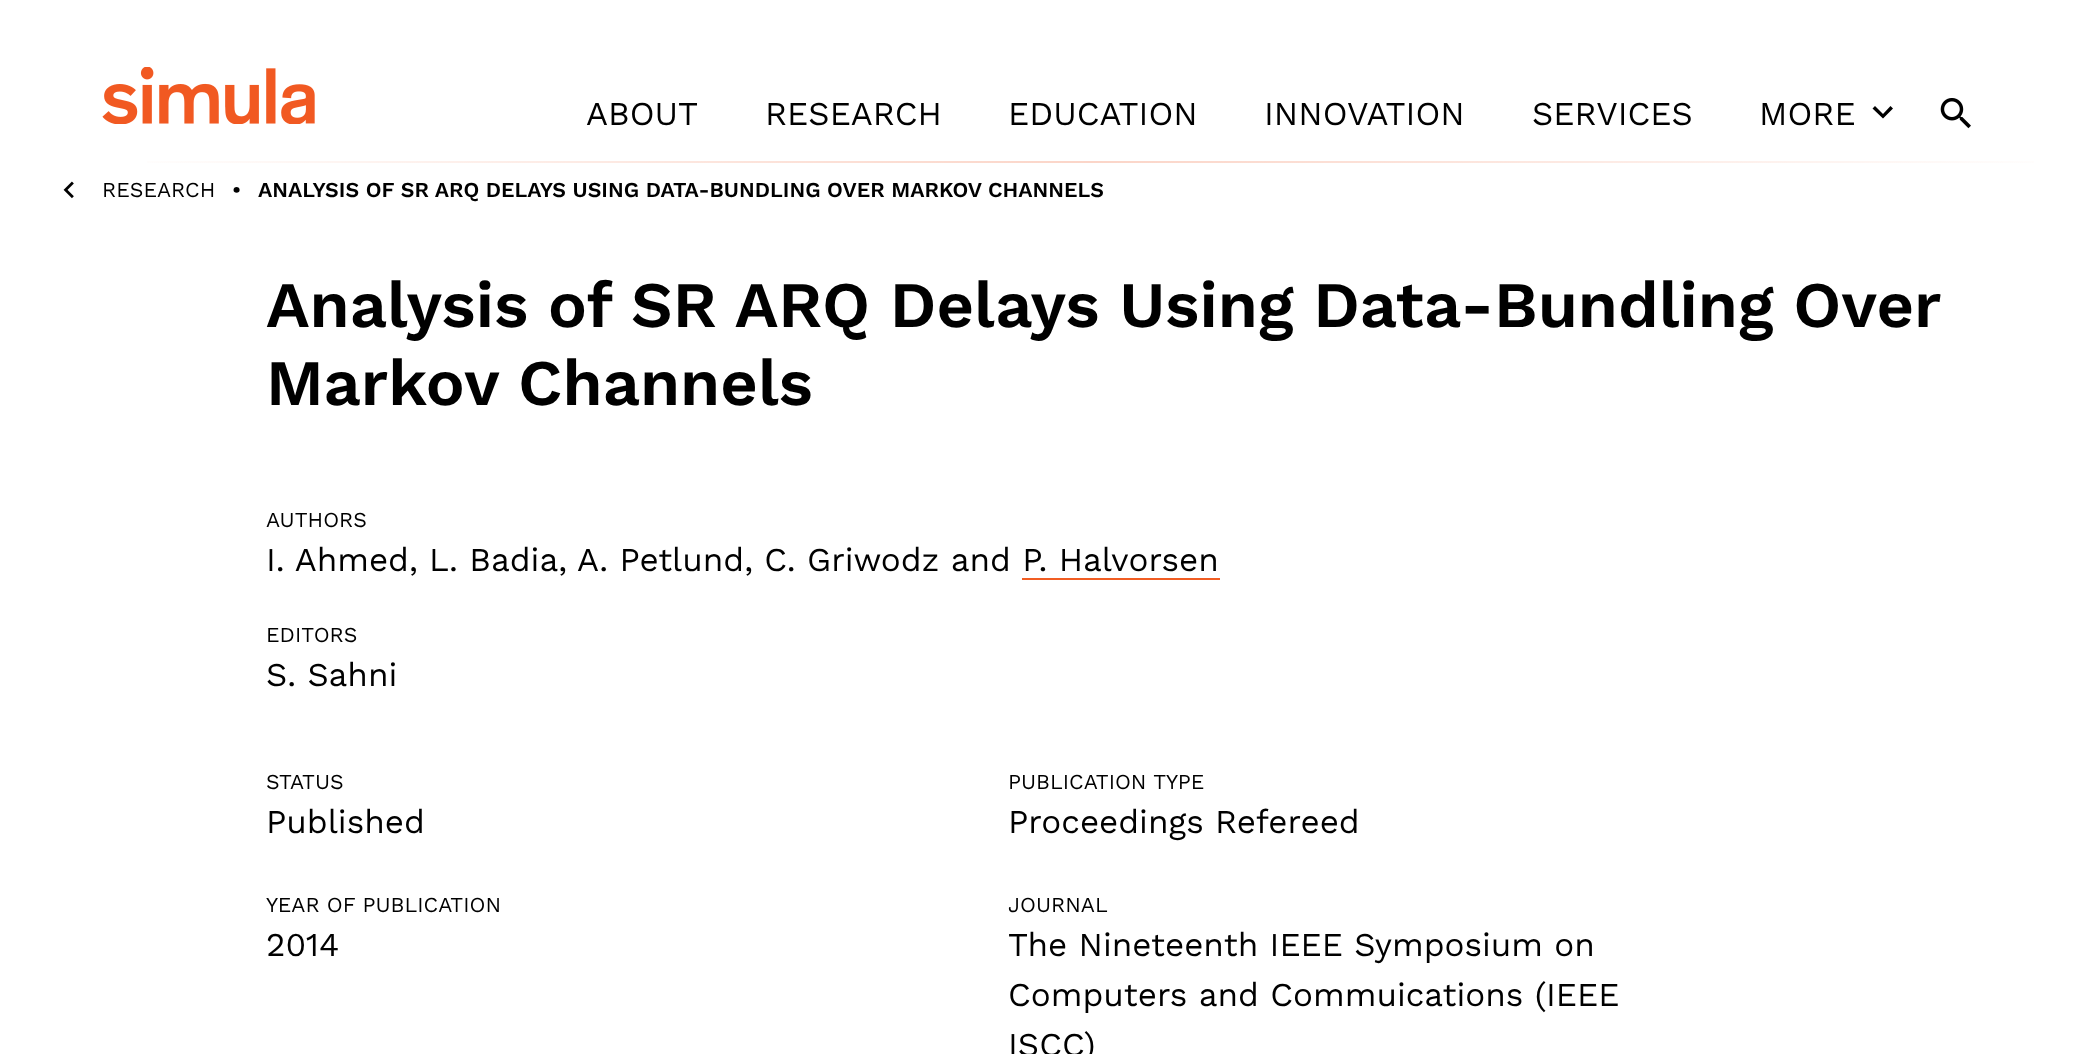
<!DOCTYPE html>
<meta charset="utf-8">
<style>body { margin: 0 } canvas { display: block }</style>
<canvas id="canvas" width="2079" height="1054"></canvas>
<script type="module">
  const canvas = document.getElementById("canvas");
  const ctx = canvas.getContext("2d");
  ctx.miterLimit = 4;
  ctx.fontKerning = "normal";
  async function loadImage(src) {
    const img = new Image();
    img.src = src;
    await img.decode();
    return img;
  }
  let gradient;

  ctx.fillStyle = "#ffffff";
  ctx.fillRect(0, 0, 2079, 1054);
  ctx.drawImage(await loadImage("img1.png"), 102, 67, 213, 57);
  ctx.font = "33.25px Work Sans";
  ctx.fillStyle = "#000000";
  ctx.fillText("ABOUT", 586, 125);
  ctx.fillText("RESEARCH", 765, 125);
  ctx.fillText("EDUCATION", 1008, 125);
  ctx.fillText("INNOVATION", 1264, 125);
  ctx.fillText("SERVICES", 1532, 125);
  ctx.fillText("MORE", 1759, 125);
  ctx.beginPath();
  ctx.moveTo(1890.5, 106);
  ctx.lineTo(1883, 114);
  ctx.lineTo(1875, 106);
  ctx.lineTo(1872.5, 108.5);
  ctx.lineTo(1883, 118.5);
  ctx.lineTo(1893, 108.5);
  ctx.closePath();
  ctx.fill();
  ctx.drawImage(await loadImage("img2.png"), 1940, 98, 31, 31);
  gradient = ctx.createLinearGradient(102, 162, 2079, 162);
  gradient.addColorStop(0, "#ffffff");
  gradient.addColorStop(0.5, "#fbd5c8");
  gradient.addColorStop(1, "#ffffff");
  ctx.fillStyle = gradient;
  ctx.fillRect(147, 161, 1887, 2);
  ctx.drawImage(await loadImage("img3.png"), 63, 181, 11, 18);
  ctx.font = "21.3px Work Sans";
  ctx.fillStyle = "#000000";
  ctx.fillText("RESEARCH", 102, 197);
  ctx.font = "600 21.3px Work Sans";
  ctx.fillText("•", 232, 197);
  ctx.fillText("ANALYSIS OF SR ARQ DELAYS USING DATA-BUNDLING OVER MARKOV CHANNELS", 258, 197);
  ctx.wordSpacing = "-0.25px";
  ctx.font = "600 64.95px Work Sans";
  ctx.fillText("Analysis of SR ARQ Delays Using Data-Bundling Over", 266, 327);
  ctx.wordSpacing = "0px";
  ctx.fillText("Markov Channels", 266, 405);
  ctx.font = "21.3px Work Sans";
  ctx.fillText("AUTHORS", 266, 527);
  ctx.font = "33.25px Work Sans";
  ctx.fillText("I. Ahmed, L. Badia,", 266, 571);
  ctx.fillText("A. Petlund, C. Griwodz and P. Halvorsen", 577, 571);
  ctx.fillStyle = "#f15d23";
  ctx.fillRect(1022, 578, 198, 2);
  ctx.font = "21.3px Work Sans";
  ctx.fillStyle = "#000000";
  ctx.fillText("EDITORS", 266, 642);
  ctx.font = "33.25px Work Sans";
  ctx.fillText("S. Sahni", 266, 686);
  ctx.font = "21.3px Work Sans";
  ctx.fillText("STATUS", 266, 789);
  ctx.font = "33.25px Work Sans";
  ctx.fillText("Published", 266, 833);
  ctx.font = "21.3px Work Sans";
  ctx.fillText("PUBLICATION TYPE", 1008, 789);
  ctx.font = "33.25px Work Sans";
  ctx.fillText("Proceedings Refereed", 1008, 833);
  ctx.font = "21.3px Work Sans";
  ctx.fillText("YEAR OF PUBLICATION", 266, 912);
  ctx.font = "33.25px Work Sans";
  ctx.fillText("2014", 266, 956);
  ctx.font = "21.3px Work Sans";
  ctx.fillText("JOURNAL", 1008, 912);
  ctx.font = "33.25px Work Sans";
  ctx.fillText("The Nineteenth IEEE Symposium on", 1008, 956);
  ctx.fillText("Computers and Commuications (IEEE", 1008, 1006);
  ctx.fillText("ISCC)", 1008, 1056);
</script>
